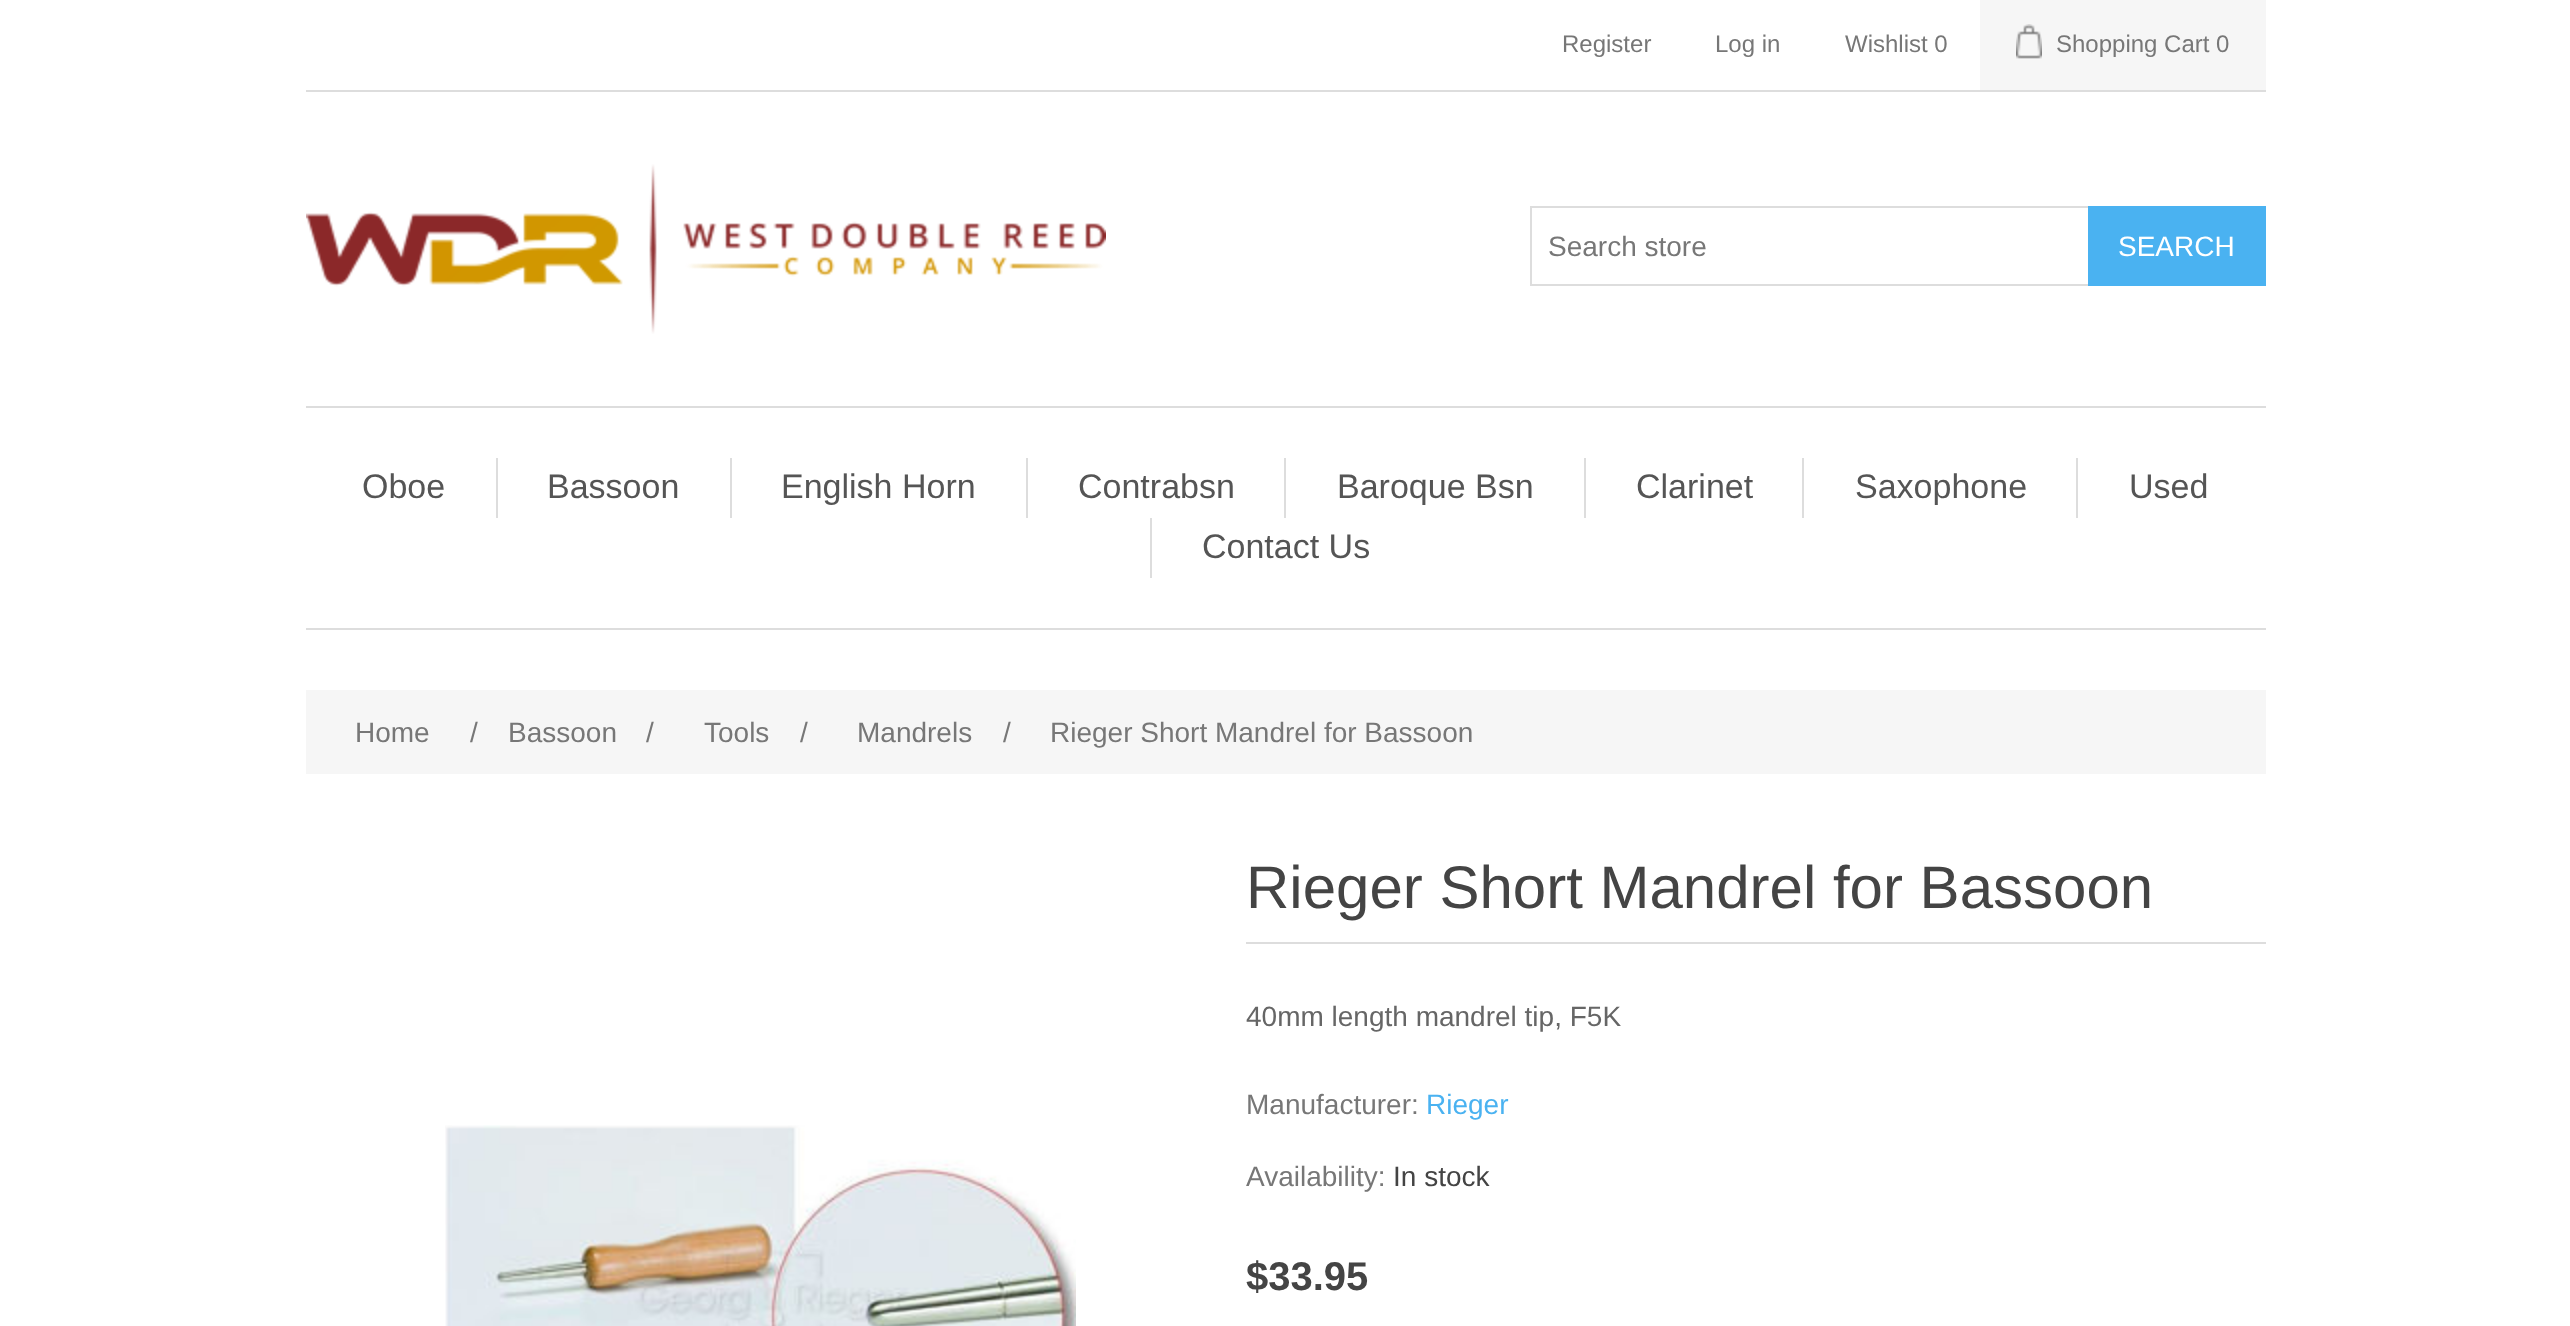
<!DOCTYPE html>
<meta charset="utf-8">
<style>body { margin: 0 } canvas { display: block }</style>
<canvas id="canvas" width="2570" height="1326"></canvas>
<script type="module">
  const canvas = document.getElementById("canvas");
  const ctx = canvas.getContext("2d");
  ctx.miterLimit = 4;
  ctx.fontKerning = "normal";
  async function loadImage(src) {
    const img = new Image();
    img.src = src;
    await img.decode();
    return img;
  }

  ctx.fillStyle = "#ffffff";
  ctx.fillRect(0, 0, 2570, 1326);
  ctx.fillStyle = "#dddddd";
  ctx.fillRect(306, 90, 1960, 2);
  ctx.font = "24px Liberation Sans";
  ctx.fillStyle = "#777777";
  ctx.fillText("Register", 1562, 52);
  ctx.fillText("Log in", 1715, 52);
  ctx.fillText("Wishlist 0", 1845, 52);
  ctx.fillStyle = "#f6f6f6";
  ctx.fillRect(1980, 0, 286, 90);
  ctx.drawImage(await loadImage("img1.png"), 2016, 24, 26, 35);
  ctx.fillStyle = "#777777";
  ctx.fillText("Shopping Cart 0", 2056, 52);
  ctx.drawImage(await loadImage("img2.png"), 306, 164, 800, 170);
  ctx.strokeStyle = "#dddddd";
  ctx.lineWidth = 2;
  ctx.strokeRect(1531, 207, 558, 78);
  ctx.font = "28px Liberation Sans";
  ctx.fillText("Search store", 1548, 256);
  ctx.fillStyle = "#4ab2f1";
  ctx.fillRect(2088, 206, 178, 80);
  ctx.fillStyle = "#ffffff";
  ctx.fillText("SEARCH", 2118, 256);
  ctx.fillStyle = "#dddddd";
  ctx.fillRect(306, 406, 1960, 2);
  ctx.fillRect(306, 628, 1960, 2);
  ctx.font = "34px Liberation Sans";
  ctx.fillStyle = "#555555";
  ctx.fillText("Oboe", 362, 498);
  ctx.fillStyle = "#dddddd";
  ctx.fillRect(496, 458, 2, 60);
  ctx.fillStyle = "#555555";
  ctx.fillText("Bassoon", 547, 498);
  ctx.fillStyle = "#dddddd";
  ctx.fillRect(730, 458, 2, 60);
  ctx.fillStyle = "#555555";
  ctx.fillText("English Horn", 781, 498);
  ctx.fillStyle = "#dddddd";
  ctx.fillRect(1026, 458, 2, 60);
  ctx.fillStyle = "#555555";
  ctx.fillText("Contrabsn", 1078, 498);
  ctx.fillStyle = "#dddddd";
  ctx.fillRect(1284, 458, 2, 60);
  ctx.fillStyle = "#555555";
  ctx.fillText("Baroque Bsn", 1337, 498);
  ctx.fillStyle = "#dddddd";
  ctx.fillRect(1584, 458, 2, 60);
  ctx.fillStyle = "#555555";
  ctx.fillText("Clarinet", 1636, 498);
  ctx.fillStyle = "#dddddd";
  ctx.fillRect(1802, 458, 2, 60);
  ctx.fillStyle = "#555555";
  ctx.fillText("Saxophone", 1855, 498);
  ctx.fillStyle = "#dddddd";
  ctx.fillRect(2076, 458, 2, 60);
  ctx.fillStyle = "#555555";
  ctx.fillText("Used", 2129, 498);
  ctx.fillStyle = "#dddddd";
  ctx.fillRect(1150, 518, 2, 60);
  ctx.fillStyle = "#555555";
  ctx.fillText("Contact Us", 1202, 558);
  ctx.fillStyle = "#f6f6f6";
  ctx.fillRect(306, 690, 1960, 84);
  ctx.font = "28px Liberation Sans";
  ctx.fillStyle = "#777777";
  ctx.fillText("Home", 355, 742);
  ctx.fillText("/", 470, 742);
  ctx.fillText("Bassoon", 508, 742);
  ctx.fillText("/", 646, 742);
  ctx.fillText("Tools", 704, 742);
  ctx.fillText("/", 800, 742);
  ctx.fillText("Mandrels", 857, 742);
  ctx.fillText("/", 1003, 742);
  ctx.fillText("Rieger Short Mandrel for Bassoon", 1050, 742);
  ctx.drawImage(await loadImage("img3.png"), 445, 1125, 631, 201);
  ctx.fillStyle = "#dddddd";
  ctx.fillRect(1246, 942, 1020, 2);
  ctx.font = "60px Liberation Sans";
  ctx.fillStyle = "#444444";
  ctx.fillText("Rieger Short Mandrel for Bassoon", 1246, 908);
  ctx.font = "28px Liberation Sans";
  ctx.fillStyle = "#666666";
  ctx.fillText("40mm length mandrel tip, F5K", 1246, 1026);
  ctx.fillStyle = "#777777";
  ctx.fillText("Manufacturer:", 1246, 1114);
  ctx.fillStyle = "#4ab2f1";
  ctx.fillText("Rieger", 1426, 1114);
  ctx.fillStyle = "#777777";
  ctx.fillText("Availability:", 1246, 1186);
  ctx.fillStyle = "#444444";
  ctx.fillText("In stock", 1393, 1186);
  ctx.font = "bold 40px Liberation Sans";
  ctx.fillText("$33.95", 1246, 1290);
</script>
